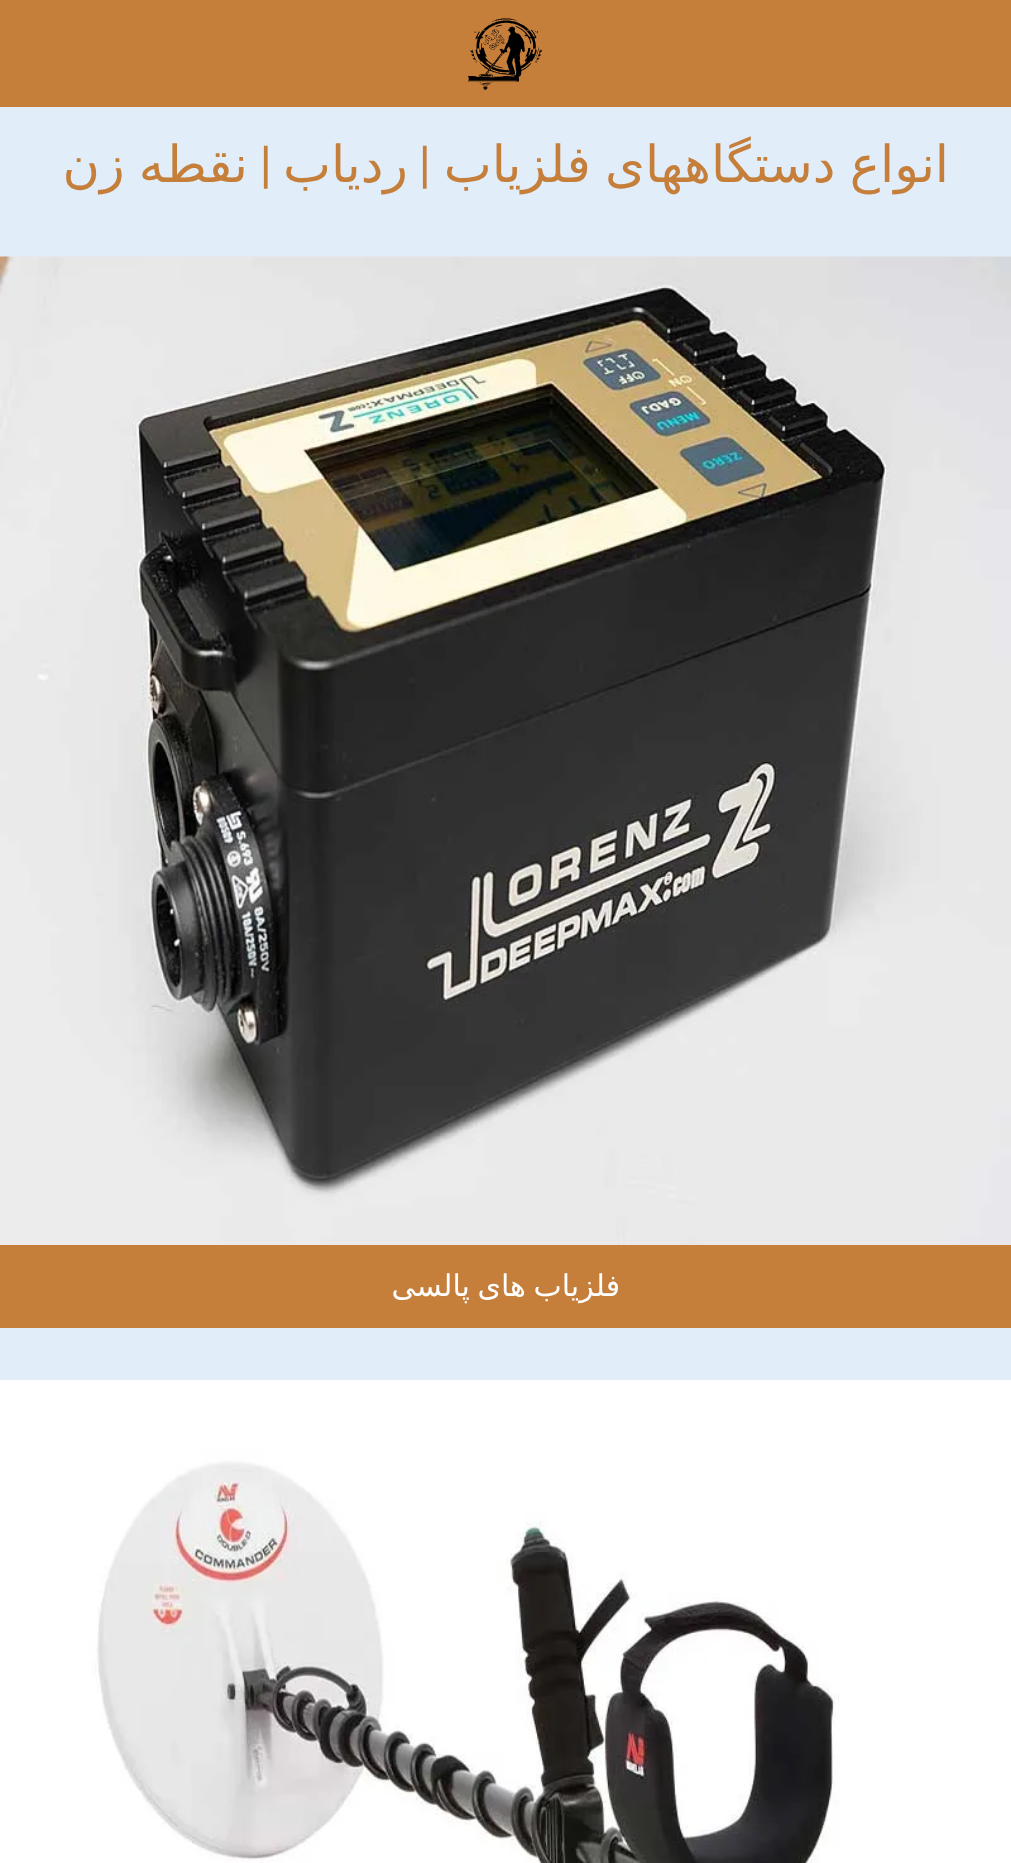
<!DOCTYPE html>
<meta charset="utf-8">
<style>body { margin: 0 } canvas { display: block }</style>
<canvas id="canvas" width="1011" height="1863"></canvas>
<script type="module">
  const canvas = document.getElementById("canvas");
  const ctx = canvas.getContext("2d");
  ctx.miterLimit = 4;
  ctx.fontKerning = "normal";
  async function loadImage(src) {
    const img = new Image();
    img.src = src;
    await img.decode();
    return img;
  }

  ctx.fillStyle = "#c57f3b";
  ctx.fillRect(0, 0, 1011, 1863);
  ctx.drawImage(await loadImage("img1.png"), 468, 18, 75, 73);
  ctx.fillStyle = "#e1edf9";
  ctx.fillRect(0, 107, 1011, 1273);
  ctx.wordSpacing = "-2px";
  ctx.direction = "rtl";
  ctx.font = "51px DejaVu Sans";
  ctx.fillStyle = "#c57f3b";
  ctx.fillText("انواع دستگاههای فلزیاب", 949, 182);
  ctx.wordSpacing = "0px";
  ctx.font = "51px Roboto";
  ctx.fillText("|", 431, 182);
  ctx.font = "51px DejaVu Sans";
  ctx.fillText("ردیاب", 408, 182);
  ctx.font = "51px Roboto";
  ctx.fillText("|", 272, 182);
  ctx.wordSpacing = "-2px";
  ctx.font = "51px DejaVu Sans";
  ctx.fillText("نقطه زن", 248, 182);
  ctx.drawImage(await loadImage("img2.png"), 0, 256, 1011, 989);
  ctx.fillRect(0, 1245, 1011, 83);
  ctx.font = "30px DejaVu Sans";
  ctx.fillStyle = "#ffffff";
  ctx.fillText("فلزیاب های پالسی", 620, 1296);
  ctx.drawImage(await loadImage("img3.png"), 0, 1380, 1011, 483);
</script>
